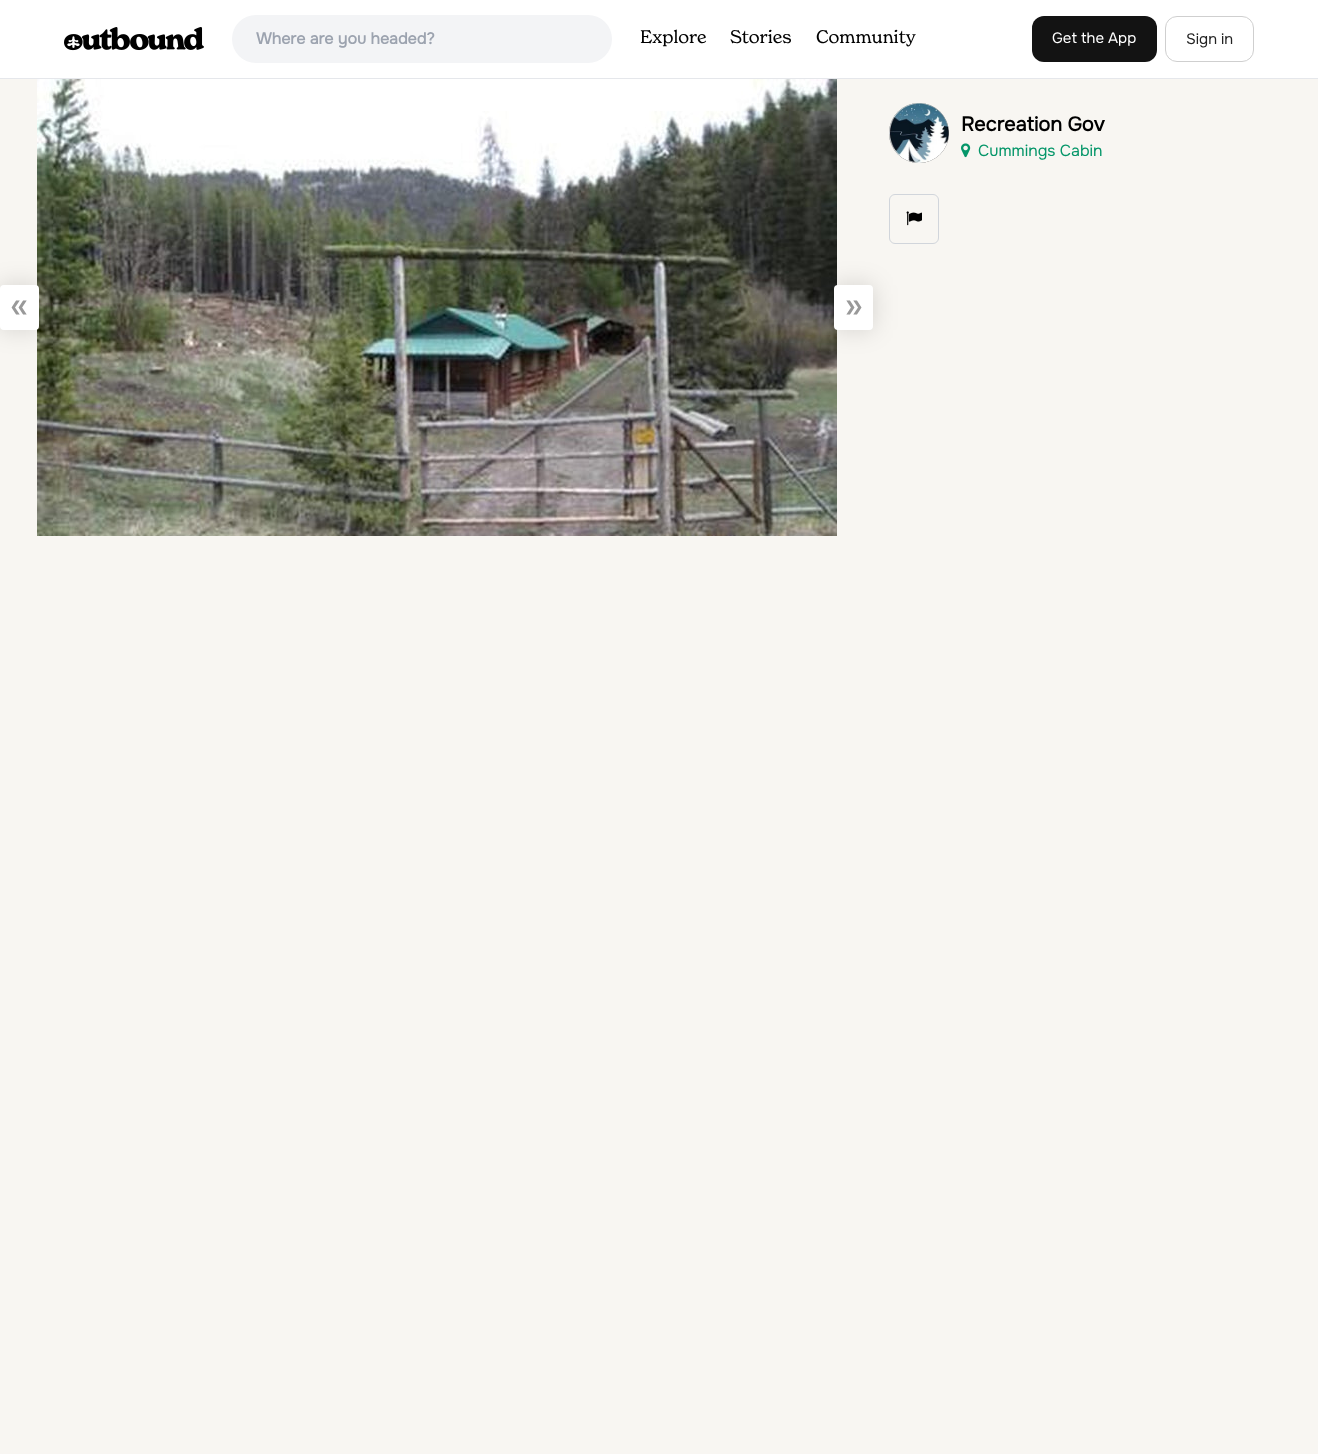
<!DOCTYPE html>
<meta charset="utf-8">
<style>body { margin: 0 } canvas { display: block }</style>
<canvas id="canvas" width="1318" height="1454"></canvas>
<script type="module">
  const canvas = document.getElementById("canvas");
  const ctx = canvas.getContext("2d");
  ctx.miterLimit = 4;
  ctx.fontKerning = "normal";
  async function loadImage(src) {
    const img = new Image();
    img.src = src;
    await img.decode();
    return img;
  }

  ctx.fillStyle = "#f8f6f2";
  ctx.fillRect(0, 0, 1318, 1454);
  ctx.fillStyle = "#ffffff";
  ctx.fillRect(0, 0, 1318, 78);
  ctx.fillStyle = "#e5e7eb";
  ctx.fillRect(0, 78, 1318, 1);
  ctx.drawImage(await loadImage("img1.png"), 64, 27, 140, 24);
  ctx.fillStyle = "#f3f4f6";
  ctx.beginPath();
  ctx.roundRect(232, 15, 380, 48, 24);
  ctx.fill();
  ctx.font = "bold 16px Onest";
  ctx.fillStyle = "#9ca3af";
  ctx.fillText("Where are you headed?", 256, 44);
  ctx.font = "18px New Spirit";
  ctx.fillStyle = "#000000";
  ctx.fillText("Explore", 640, 43);
  ctx.fillText("Stories", 730, 43);
  ctx.fillText("Community", 816, 43);
  ctx.fillStyle = "#131313";
  ctx.beginPath();
  ctx.roundRect(1032, 16, 125, 46, 12);
  ctx.fill();
  ctx.font = "15px Onest";
  ctx.fillStyle = "#ffffff";
  ctx.fillText("Get the App", 1052, 43);
  ctx.beginPath();
  ctx.roundRect(1165.5, 16.5, 88, 45, 11.5);
  ctx.strokeStyle = "#cfcfcf";
  ctx.stroke();
  ctx.fillStyle = "#232323";
  ctx.fillText("Sign in", 1186, 44);
  ctx.fillStyle = "#333333";
  ctx.beginPath();
  ctx.arc(919, 133, 30, 0, Math.PI * 2);
  ctx.fill();
  ctx.drawImage(await loadImage("img2.png"), 889, 103, 60, 60);
  ctx.font = "bold 20px Onest";
  ctx.fillStyle = "#000000";
  ctx.fillText("Recreation Gov", 961, 131);
  ctx.drawImage(await loadImage("img3.png"), 961, 143, 10, 15);
  ctx.font = "16px Onest";
  ctx.fillStyle = "#059669";
  ctx.fillText("Cummings Cabin", 978, 156);
  ctx.beginPath();
  ctx.roundRect(889.5, 194.5, 49, 49, 5.5);
  ctx.strokeStyle = "#d1d5db";
  ctx.stroke();
  ctx.drawImage(await loadImage("img4.png"), 906, 211, 16, 15);
  ctx.drawImage(await loadImage("img5.png"), 37, 79, 800, 457);
  ctx.fillStyle = "rgba(0, 0, 0, 0.15)";
  ctx.filter = "blur(12px)";
  ctx.beginPath();
  ctx.roundRect(0, 285, 39, 45, 4);
  ctx.fill();
  ctx.filter = "none";
  ctx.fillStyle = "#ffffff";
  ctx.beginPath();
  ctx.roundRect(0, 285, 39, 45, 4);
  ctx.fill();
  ctx.font = "40px Onest";
  ctx.fillStyle = "#999999";
  ctx.fillText("«", 10, 318);
  ctx.fillStyle = "rgba(0, 0, 0, 0.15)";
  ctx.filter = "blur(12px)";
  ctx.beginPath();
  ctx.roundRect(834, 285, 39, 45, 4);
  ctx.fill();
  ctx.filter = "none";
  ctx.fillStyle = "#ffffff";
  ctx.beginPath();
  ctx.roundRect(834, 285, 39, 45, 4);
  ctx.fill();
  ctx.fillStyle = "#999999";
  ctx.fillText("»", 844, 318);
</script>
